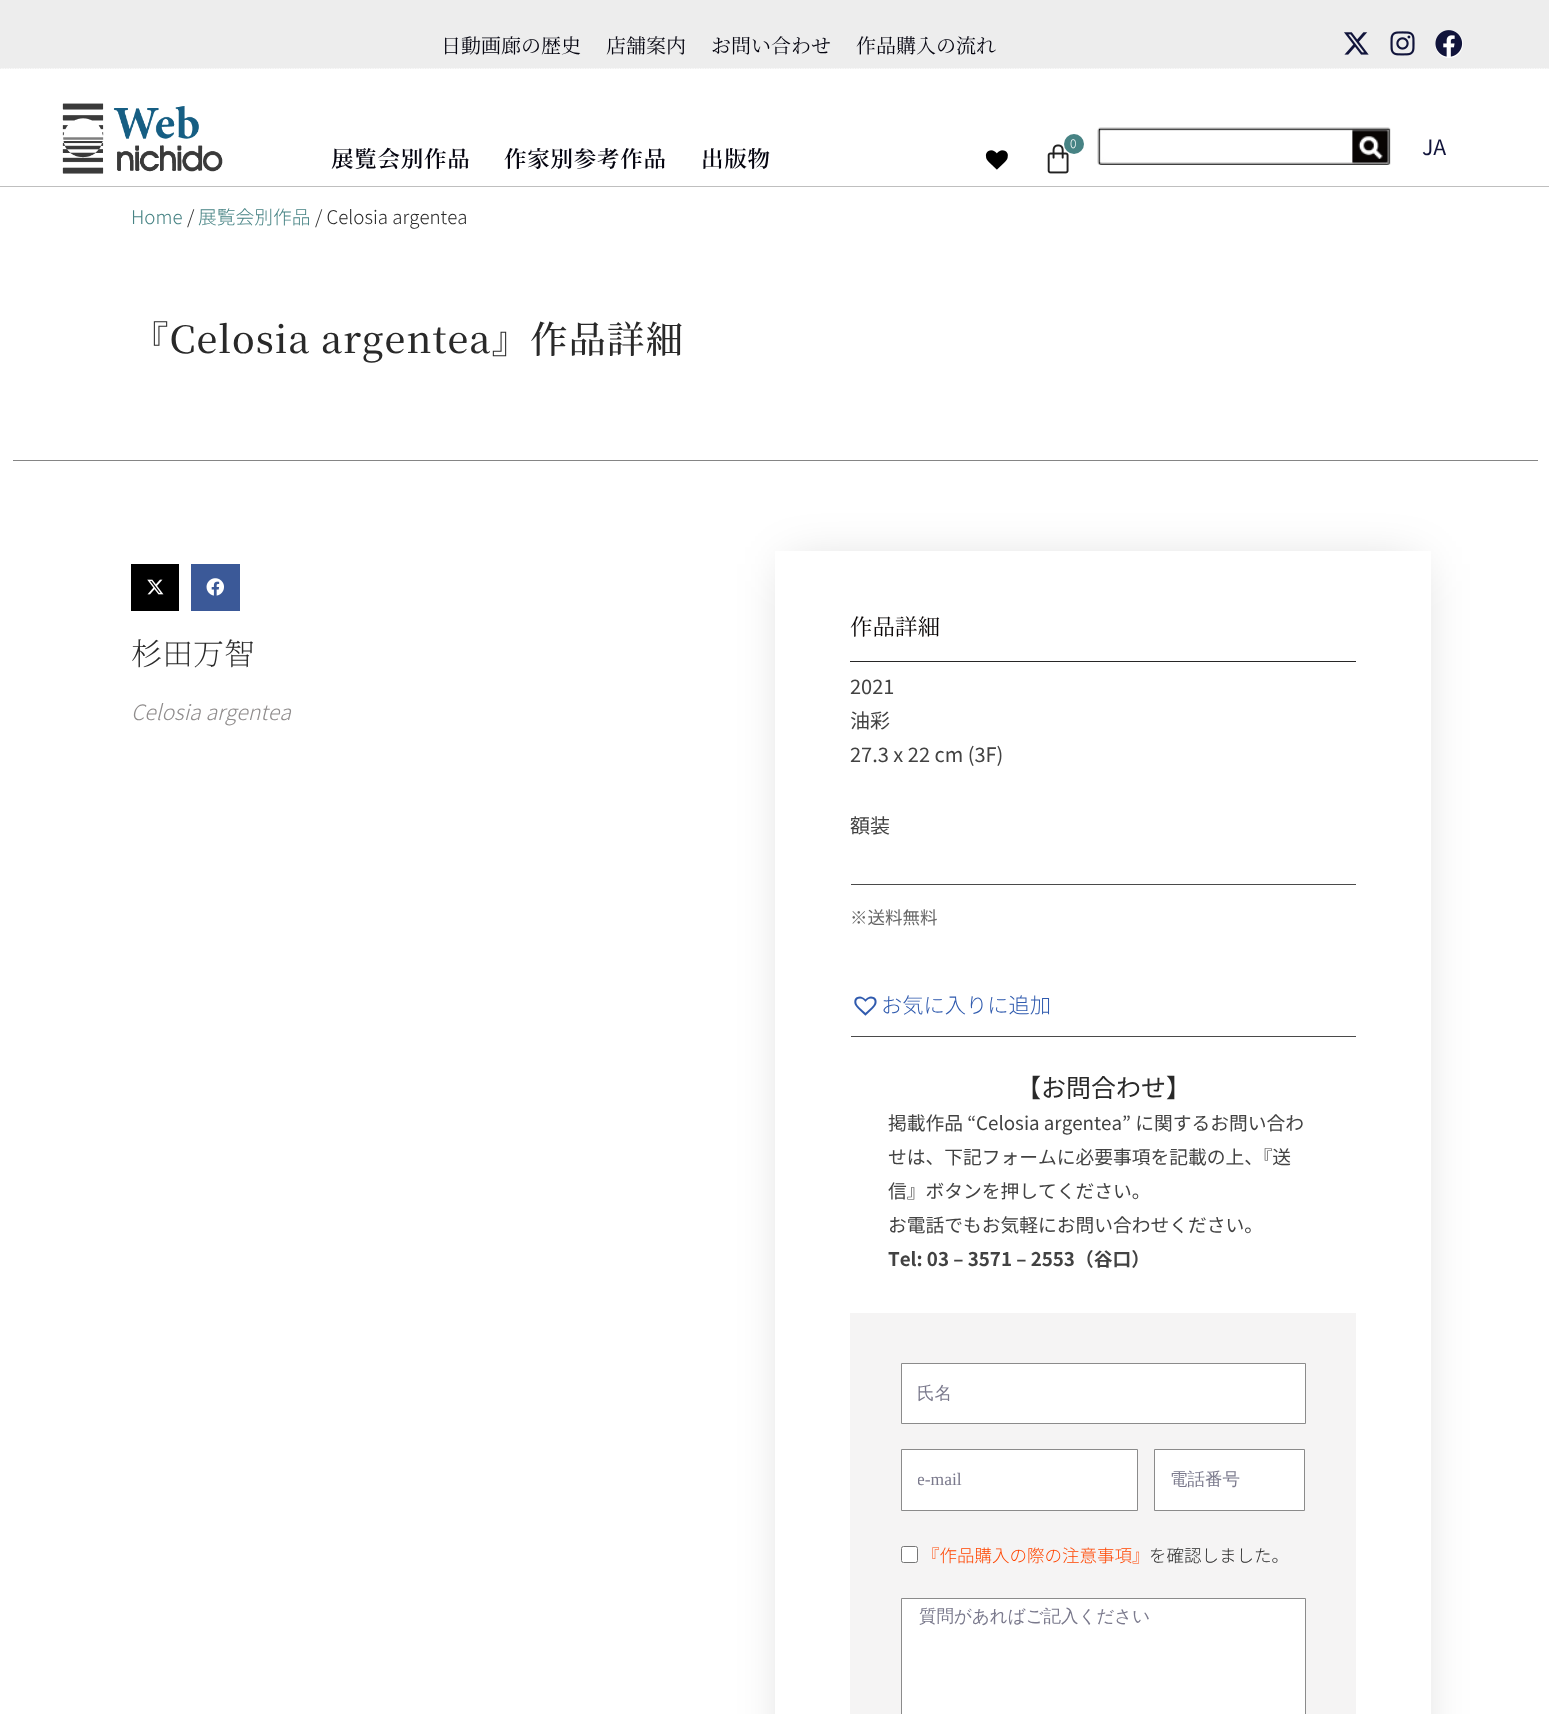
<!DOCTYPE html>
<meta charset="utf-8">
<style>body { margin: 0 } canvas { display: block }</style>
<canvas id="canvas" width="1549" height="1714"></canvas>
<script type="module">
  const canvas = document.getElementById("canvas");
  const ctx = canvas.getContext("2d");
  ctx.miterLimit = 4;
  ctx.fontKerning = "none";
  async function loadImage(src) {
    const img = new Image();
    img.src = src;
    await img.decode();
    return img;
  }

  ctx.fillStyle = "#ffffff";
  ctx.fillRect(0, 0, 1549, 1714);
  ctx.fillStyle = "#fbfbfb";
  ctx.fillRect(0, 68, 1549, 1);
  ctx.beginPath();
  ctx.moveTo(0, 68);
  ctx.lineTo(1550, 68);
  ctx.strokeStyle = "#e4e4e4";
  ctx.lineWidth = 1.2;
  ctx.setLineDash([1.25, 1.25]);
  ctx.stroke();
  ctx.fillStyle = "#ededed";
  ctx.fillRect(0, 0, 1549, 68);
  ctx.font = "20px Noto Serif JP";
  ctx.fillStyle = "#050510";
  ctx.fillText("日動画廊の歴史", 441, 53);
  ctx.fillText("店舗案内", 606, 53);
  ctx.fillText("お問い合わせ", 711, 53);
  ctx.fillText("作品購入の流れ", 856, 53);
  ctx.drawImage(await loadImage("img1.png"), 1344, 32, 25, 23);
  ctx.drawImage(await loadImage("img2.png"), 1390, 31, 25, 25);
  ctx.fillStyle = "#ffffff";
  ctx.beginPath();
  ctx.arc(1449, 44, 14, 0, Math.PI * 2);
  ctx.fill();
  ctx.drawImage(await loadImage("img3.png"), 1435, 30, 28, 27);
  ctx.fillStyle = "#bfbfbf";
  ctx.fillRect(0, 186, 1549, 1);
  ctx.drawImage(await loadImage("img4.png"), 62, 103, 161, 71);
  ctx.letterSpacing = "0.75px";
  ctx.font = "600 22.5px Noto Serif JP";
  ctx.fillStyle = "#050510";
  ctx.fillText("展覧会別作品", 331, 167);
  ctx.fillText("作家別参考作品", 504, 167);
  ctx.fillText("出版物", 701, 167);
  ctx.drawImage(await loadImage("img5.png"), 985, 150, 23, 20);
  ctx.drawImage(await loadImage("img6.png"), 1047, 144, 22, 30);
  ctx.fillStyle = "#478384";
  ctx.beginPath();
  ctx.arc(1074, 144, 10, 0, Math.PI * 2);
  ctx.fill();
  ctx.letterSpacing = "0px";
  ctx.font = "300 12px Noto Sans JP";
  ctx.fillStyle = "#ffffff";
  ctx.fillText("0", 1070, 148);
  ctx.drawImage(await loadImage("img7.png"), 1097, 127, 294, 38);
  ctx.font = "21.25px Noto Sans JP";
  ctx.fillStyle = "#11143b";
  ctx.fillText("JA", 1422, 155);
  ctx.font = "300 18.75px Noto Sans JP";
  ctx.fillStyle = "#478384";
  ctx.fillText("Home", 131, 224);
  ctx.fillStyle = "#292929";
  ctx.fillText("/", 187, 224);
  ctx.fillStyle = "#478384";
  ctx.fillText("展覧会別作品", 198, 224);
  ctx.fillStyle = "#292929";
  ctx.fillText("/ Celosia argentea", 315, 224);
  ctx.letterSpacing = "1px";
  ctx.font = "500 37.5px Noto Serif JP";
  ctx.fillText("『Celosia argentea』作品詳細", 131, 353);
  ctx.fillStyle = "#858585";
  ctx.fillRect(13, 460, 1525, 1);
  ctx.fillStyle = "#000000";
  ctx.fillRect(131, 564, 48, 47);
  ctx.drawImage(await loadImage("img8.png"), 147, 579, 17, 16);
  ctx.fillStyle = "#3b5998";
  ctx.fillRect(191, 564, 49, 47);
  ctx.drawImage(await loadImage("img9.png"), 206, 578, 18, 18);
  ctx.letterSpacing = "0px";
  ctx.font = "200 31px Noto Serif JP";
  ctx.fillStyle = "#292929";
  ctx.fillText("杉田万智", 131, 665);
  ctx.font = "italic 300 21.25px Noto Sans JP";
  ctx.fillStyle = "#8f8c8c";
  ctx.fillText("Celosia argentea", 131, 720);
  ctx.fillStyle = "rgba(0, 0, 0, 0.17)";
  ctx.filter = "blur(25px)";
  ctx.beginPath();
  ctx.rect(788, 564, 631, 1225);
  ctx.fill();
  ctx.filter = "none";
  ctx.fillStyle = "#ffffff";
  ctx.fillRect(775, 551, 656, 1163);
  ctx.fillStyle = "#272626";
  ctx.fillRect(850, 661, 506, 1);
  ctx.font = "22.5px Noto Serif JP";
  ctx.fillStyle = "#080404";
  ctx.fillText("作品詳細", 850, 635);
  ctx.font = "20px Noto Sans JP";
  ctx.fillStyle = "#424242";
  ctx.fillText("2021", 850, 694);
  ctx.fillText("油彩", 850, 728);
  ctx.fillText("27.3 x 22 cm (3F)", 850, 762);
  ctx.fillText("額装", 850, 833);
  ctx.fillStyle = "#4a4a4a";
  ctx.fillRect(851, 884, 505, 1);
  ctx.fillRect(851, 1036, 505, 1);
  ctx.font = "17.5px Noto Sans JP";
  ctx.fillStyle = "#676767";
  ctx.fillText("※送料無料", 850, 924);
  ctx.drawImage(await loadImage("img10.png"), 854, 996, 23, 20);
  ctx.font = "300 21.25px Noto Sans JP";
  ctx.fillStyle = "#2f5aae";
  ctx.fillText("お気に入りに追加", 881, 1013);
  ctx.font = "25px Noto Sans JP";
  ctx.fillStyle = "#292929";
  ctx.fillText("【お問合わせ】", 1016, 1097);
  ctx.font = "18.75px Noto Sans JP";
  ctx.fillStyle = "#424242";
  ctx.fillText("掲載作品 “Celosia argentea” に関するお問い合わ", 888, 1130);
  ctx.fillText("せは、下記フォームに必要事項を記載の上、『送", 888, 1164);
  ctx.fillText("信』ボタンを押してください。", 888, 1198);
  ctx.fillText("お電話でもお気軽にお問い合わせください。", 888, 1232);
  ctx.font = "bold 18.75px Noto Sans JP";
  ctx.fillText("Tel: 03 – 3571 – 2553（谷口）", 888, 1266);
  ctx.fillStyle = "#f5f4f4";
  ctx.fillRect(850, 1313, 506, 401);
  ctx.fillStyle = "#ffffff";
  ctx.beginPath();
  ctx.rect(901.5, 1363.5, 404, 60);
  ctx.fill();
  ctx.strokeStyle = "#8b8b8b";
  ctx.lineWidth = 1;
  ctx.setLineDash([]);
  ctx.stroke();
  ctx.font = "500 17.5px WenQuanYi Zen Hei";
  ctx.fillStyle = "#7a798c";
  ctx.fillText("氏名", 917, 1399);
  ctx.fillStyle = "#ffffff";
  ctx.beginPath();
  ctx.rect(901.5, 1449.5, 236, 61);
  ctx.fill();
  ctx.stroke();
  ctx.save();
  ctx.beginPath();
  ctx.rect(918, 1470, 203, 20);
  ctx.clip();
  ctx.font = "17.5px Liberation Serif";
  ctx.fillStyle = "#7a798c";
  ctx.fillText("e-mail", 917, 1485);
  ctx.restore();
  ctx.beginPath();
  ctx.rect(1154.5, 1449.5, 150, 61);
  ctx.fill();
  ctx.stroke();
  ctx.fillStyle = "#7a798c";
  ctx.fillText("電話番号", 1170, 1485);
  ctx.fillStyle = "#ffffff";
  ctx.beginPath();
  ctx.roundRect(901.5, 1546.5, 16, 16, 2);
  ctx.fill();
  ctx.strokeStyle = "#767676";
  ctx.stroke();
  ctx.font = "300 17.5px Noto Sans JP";
  ctx.fillStyle = "#ff4500";
  ctx.fillText("『作品購入の際の注意事項』", 922, 1562);
  ctx.fillStyle = "#292929";
  ctx.fillText("を確認しました。", 1149, 1562);
  ctx.fillStyle = "#ffffff";
  ctx.beginPath();
  ctx.rect(901.5, 1598.5, 404, 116);
  ctx.fill();
  ctx.strokeStyle = "#8b8b8b";
  ctx.stroke();
  ctx.font = "500 17.5px WenQuanYi Zen Hei";
  ctx.fillStyle = "#7a798c";
  ctx.fillText("質問があればご記入ください", 919, 1622);
</script>
